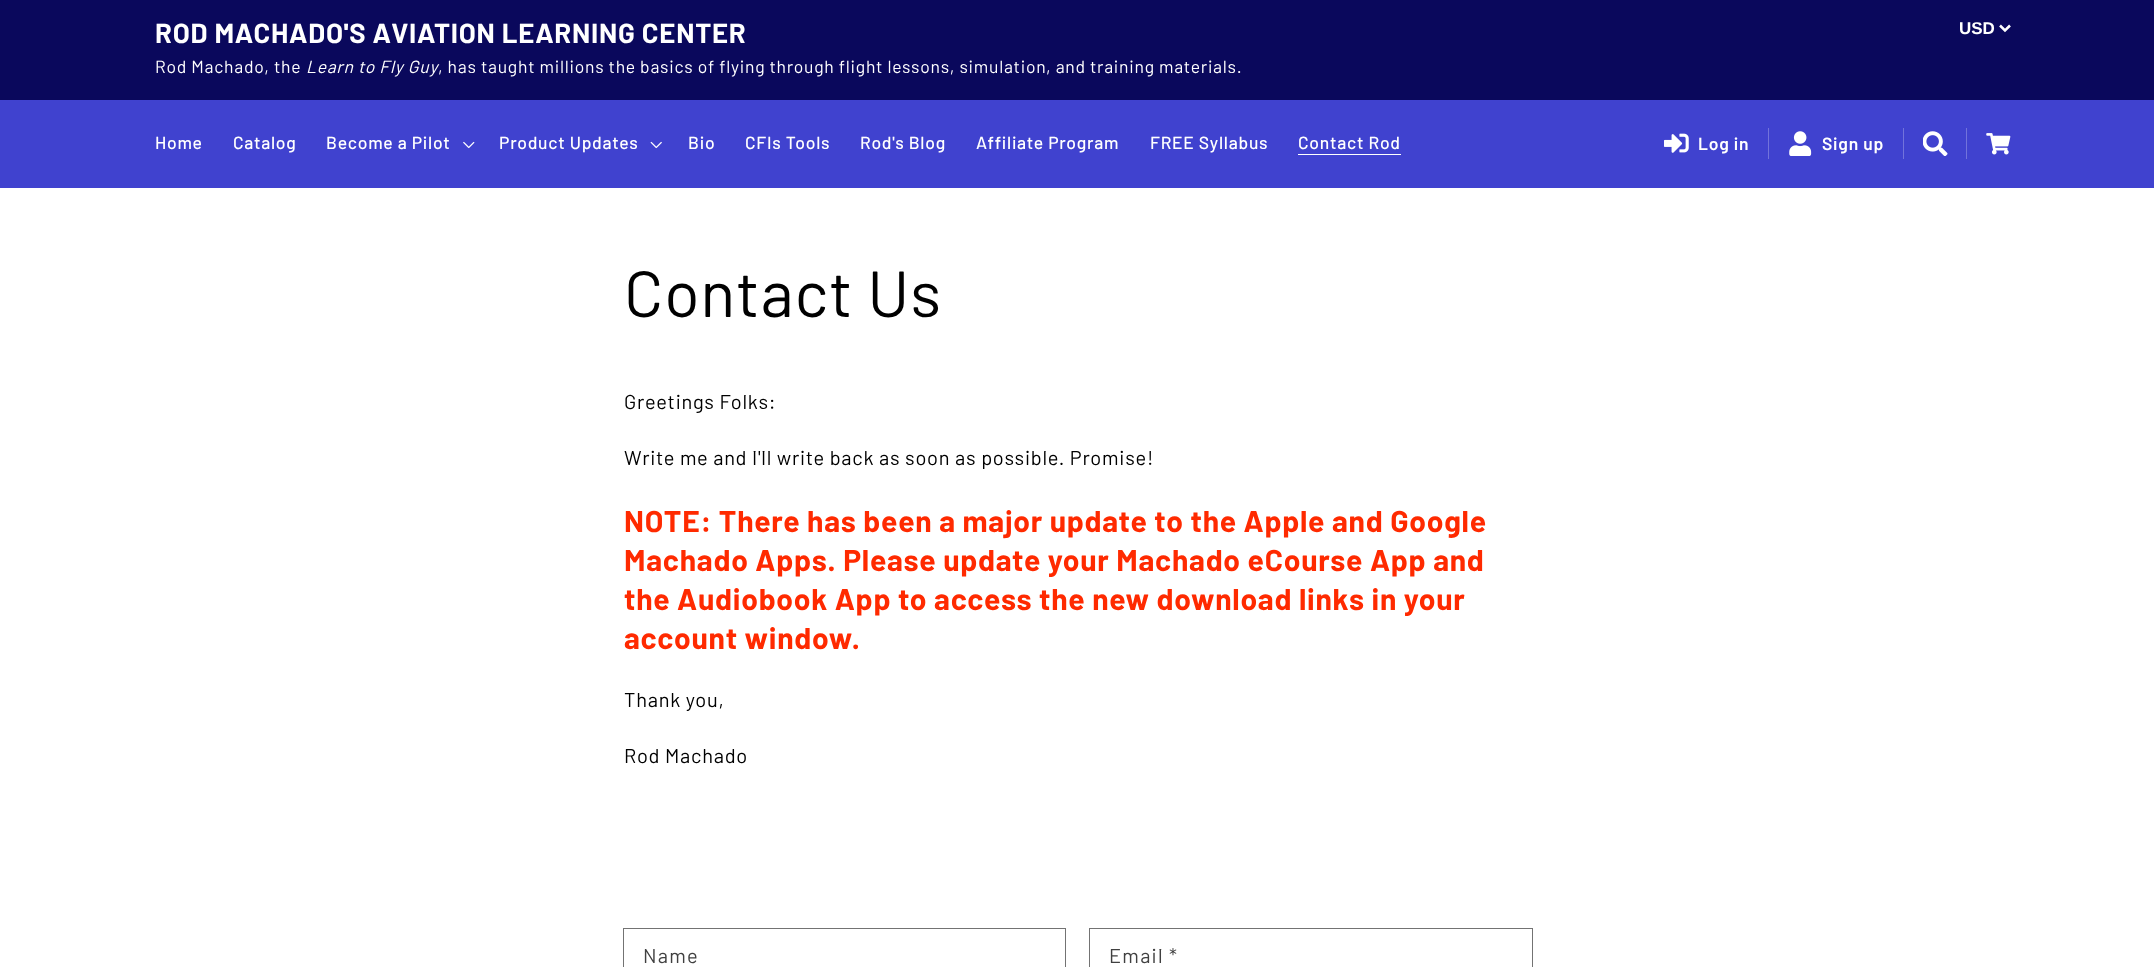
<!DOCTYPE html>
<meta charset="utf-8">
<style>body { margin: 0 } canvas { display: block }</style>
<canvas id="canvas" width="2154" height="967"></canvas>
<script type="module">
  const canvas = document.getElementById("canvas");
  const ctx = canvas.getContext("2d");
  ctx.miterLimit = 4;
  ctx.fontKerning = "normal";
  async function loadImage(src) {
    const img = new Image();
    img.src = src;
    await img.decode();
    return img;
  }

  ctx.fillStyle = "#ffffff";
  ctx.fillRect(0, 0, 2154, 967);
  ctx.fillStyle = "#0a085c";
  ctx.fillRect(0, 0, 2154, 100);
  ctx.letterSpacing = "0.75px";
  ctx.font = "bold 27.5px Barlow";
  ctx.fillStyle = "#ffffff";
  ctx.fillText("ROD MACHADO'S AVIATION LEARNING CENTER", 155, 43);
  ctx.font = "17.5px Barlow";
  ctx.fillText("Rod Machado, the", 155, 73);
  ctx.font = "italic 17.5px Barlow";
  ctx.fillText("Learn to Fly Guy", 306, 73);
  ctx.font = "17.5px Barlow";
  ctx.fillText(", has taught millions the basics of flying through flight lessons, simulation, and training materials.", 438, 73);
  ctx.beginPath();
  ctx.moveTo(2000, 25.5);
  ctx.lineTo(2005, 30.5);
  ctx.lineTo(2010, 25.5);
  ctx.strokeStyle = "#ffffff";
  ctx.lineWidth = 2.5;
  ctx.stroke();
  ctx.letterSpacing = "0px";
  ctx.font = "bold 17px Liberation Sans";
  ctx.fillText("USD", 1959, 34);
  ctx.fillStyle = "#4042cf";
  ctx.fillRect(0, 100, 2154, 88);
  ctx.letterSpacing = "0.75px";
  ctx.font = "500 17.5px Barlow";
  ctx.fillStyle = "#ffffff";
  ctx.fillText("Home", 155, 149);
  ctx.fillText("Catalog", 233, 149);
  ctx.fillText("Become a Pilot", 326, 149);
  ctx.drawImage(await loadImage("img1.png"), 463, 141, 12, 8);
  ctx.fillText("Product Updates", 499, 149);
  ctx.drawImage(await loadImage("img2.png"), 650, 141, 12, 8);
  ctx.fillText("Bio", 688, 149);
  ctx.fillText("CFIs Tools", 745, 149);
  ctx.fillText("Rod's Blog", 860, 149);
  ctx.fillText("Affiliate Program", 976, 149);
  ctx.fillText("FREE Syllabus", 1150, 149);
  ctx.fillText("Contact Rod", 1298, 149);
  ctx.fillRect(1298, 154, 103, 1);
  ctx.fillStyle = "#7273db";
  ctx.fillRect(1768, 128, 1, 31);
  ctx.drawImage(await loadImage("img3.png"), 1664, 133, 25, 20);
  ctx.font = "600 17.5px Barlow";
  ctx.fillStyle = "#ffffff";
  ctx.fillText("Log in", 1698, 150);
  ctx.fillStyle = "#7273db";
  ctx.fillRect(1903, 128, 1, 31);
  ctx.drawImage(await loadImage("img4.png"), 1789, 131, 23, 25);
  ctx.fillStyle = "#ffffff";
  ctx.fillText("Sign up", 1822, 150);
  ctx.fillStyle = "#7273db";
  ctx.fillRect(1966, 128, 1, 31);
  ctx.drawImage(await loadImage("img5.png"), 1923, 131, 25, 25);
  ctx.drawImage(await loadImage("img6.png"), 1986, 133, 25, 22);
  ctx.font = "65px Barlow";
  ctx.fillStyle = "#000000";
  ctx.fillText("Contact Us", 624, 317);
  ctx.font = "20px Barlow";
  ctx.fillText("Greetings Folks:", 624, 409);
  ctx.fillText("Write me and I'll write back as soon as possible. Promise!", 624, 465);
  ctx.font = "bold 30px Barlow";
  ctx.fillStyle = "#ff2a00";
  ctx.fillText("NOTE: There has been a major update to the Apple and Google", 624, 532);
  ctx.fillText("Machado Apps. Please update your Machado eCourse App and", 624, 571);
  ctx.fillText("the Audiobook App to access the new download links in your", 624, 610);
  ctx.fillText("account window.", 624, 649);
  ctx.font = "20px Barlow";
  ctx.fillStyle = "#000000";
  ctx.fillText("Thank you,", 624, 707);
  ctx.fillText("Rod Machado", 624, 763);
  ctx.strokeStyle = "#737373";
  ctx.lineWidth = 1;
  ctx.strokeRect(623.5, 928.5, 442, 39);
  ctx.letterSpacing = "1.25px";
  ctx.fillStyle = "#404040";
  ctx.fillText("Name", 643, 963);
  ctx.strokeRect(1089.5, 928.5, 443, 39);
  ctx.fillText("Email *", 1109, 963);
</script>
